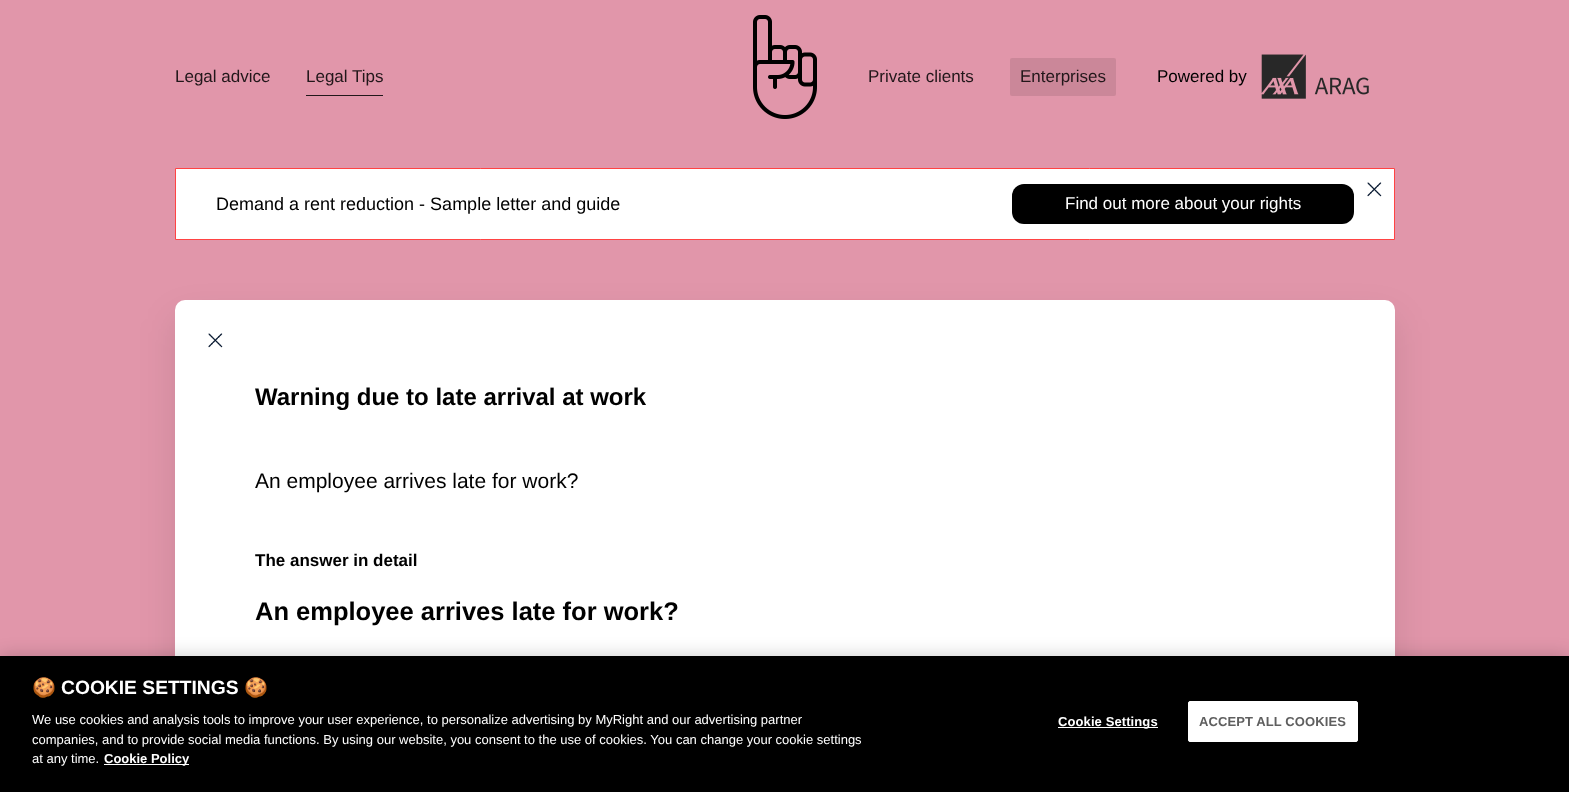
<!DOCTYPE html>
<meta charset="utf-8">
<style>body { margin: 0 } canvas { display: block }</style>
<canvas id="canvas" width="1569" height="792"></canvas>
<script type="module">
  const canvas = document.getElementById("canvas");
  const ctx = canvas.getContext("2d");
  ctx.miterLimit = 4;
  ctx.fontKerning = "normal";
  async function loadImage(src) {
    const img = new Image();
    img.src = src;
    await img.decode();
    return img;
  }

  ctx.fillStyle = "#e196aa";
  ctx.fillRect(0, 0, 1569, 792);
  ctx.drawImage(await loadImage("img1.png"), 753, 15, 64, 104);
  ctx.font = "17px Liberation Sans";
  ctx.fillStyle = "#22171a";
  ctx.fillText("Legal advice", 175, 82);
  ctx.fillRect(306, 95, 77, 1);
  ctx.fillText("Legal Tips", 306, 82);
  ctx.fillText("Private clients", 868, 82);
  ctx.fillStyle = "#cb8799";
  ctx.beginPath();
  ctx.roundRect(1010, 58, 106, 38, 2);
  ctx.fill();
  ctx.fillStyle = "#22171a";
  ctx.fillText("Enterprises", 1020, 82);
  ctx.fillStyle = "#000000";
  ctx.fillText("Powered by", 1157, 82);
  ctx.drawImage(await loadImage("img2.png"), 1261, 54, 108, 45);
  ctx.fillStyle = "#ffffff";
  ctx.beginPath();
  ctx.rect(175.5, 168.5, 1219, 71);
  ctx.fill();
  ctx.strokeStyle = "#ff4343";
  ctx.stroke();
  ctx.drawImage(await loadImage("img3.png"), 1367, 182, 15, 15);
  ctx.font = "18px Liberation Sans";
  ctx.fillStyle = "#000000";
  ctx.fillText("Demand a rent reduction - Sample letter and guide", 216, 210);
  ctx.beginPath();
  ctx.roundRect(1012, 184, 342, 40, 12);
  ctx.fill();
  ctx.font = "17px Liberation Sans";
  ctx.fillStyle = "#ffffff";
  ctx.fillText("Find out more about your rights", 1065, 209);
  ctx.fillStyle = "rgba(0, 0, 0, 0.1)";
  ctx.filter = "blur(18px)";
  ctx.beginPath();
  ctx.roundRect(175, 318, 1220, 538, 10);
  ctx.fill();
  ctx.filter = "none";
  ctx.fillStyle = "#ffffff";
  ctx.beginPath();
  ctx.roundRect(175, 300, 1220, 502, 10);
  ctx.fill();
  ctx.drawImage(await loadImage("img3.png"), 208, 333, 15, 15);
  ctx.font = "bold 24px Liberation Sans";
  ctx.fillStyle = "#000000";
  ctx.fillText("Warning due to late arrival at work", 255, 405);
  ctx.font = "21px Liberation Sans";
  ctx.fillText("An employee arrives late for work?", 255, 488);
  ctx.font = "bold 17px Liberation Sans";
  ctx.fillText("The answer in detail", 255, 566);
  ctx.font = "bold 25.5px Liberation Sans";
  ctx.fillText("An employee arrives late for work?", 255, 620);
  ctx.fillStyle = "rgba(0, 0, 0, 0.2)";
  ctx.filter = "blur(9px)";
  ctx.beginPath();
  ctx.rect(0, 656, 1569, 136);
  ctx.fill();
  ctx.filter = "none";
  ctx.fillStyle = "#000000";
  ctx.fillRect(0, 656, 1569, 136);
  ctx.font = "bold 19.25px Noto Color Emoji";
  ctx.fillStyle = "#ffffff";
  ctx.fillText("🍪", 32, 694);
  ctx.font = "bold 19.25px Liberation Sans";
  ctx.fillText("COOKIE SETTINGS", 61, 694);
  ctx.font = "bold 19.25px Noto Color Emoji";
  ctx.fillText("🍪", 244, 694);
  ctx.font = "13px Liberation Sans";
  ctx.fillText("We use cookies and analysis tools to improve your user experience, to personalize advertising by MyRight and our advertising partner", 32, 724);
  ctx.fillText("companies, and to provide social media functions. By using our website, you consent to the use of cookies. You can change your cookie settings", 32, 744);
  ctx.fillText("at any time.", 32, 763);
  ctx.fillRect(104, 764, 85, 1);
  ctx.font = "bold 13px Liberation Sans";
  ctx.fillText("Cookie Policy", 104, 763);
  ctx.fillRect(1058, 727, 100, 1);
  ctx.letterSpacing = "0.1px";
  ctx.fillText("Cookie Settings", 1058, 726);
  ctx.beginPath();
  ctx.roundRect(1188.5, 701.5, 169, 40, 1.5);
  ctx.fill();
  ctx.strokeStyle = "#ffffff";
  ctx.stroke();
  ctx.fillStyle = "#5f5f5f";
  ctx.fillText("ACCEPT ALL COOKIES", 1199, 726);
</script>
